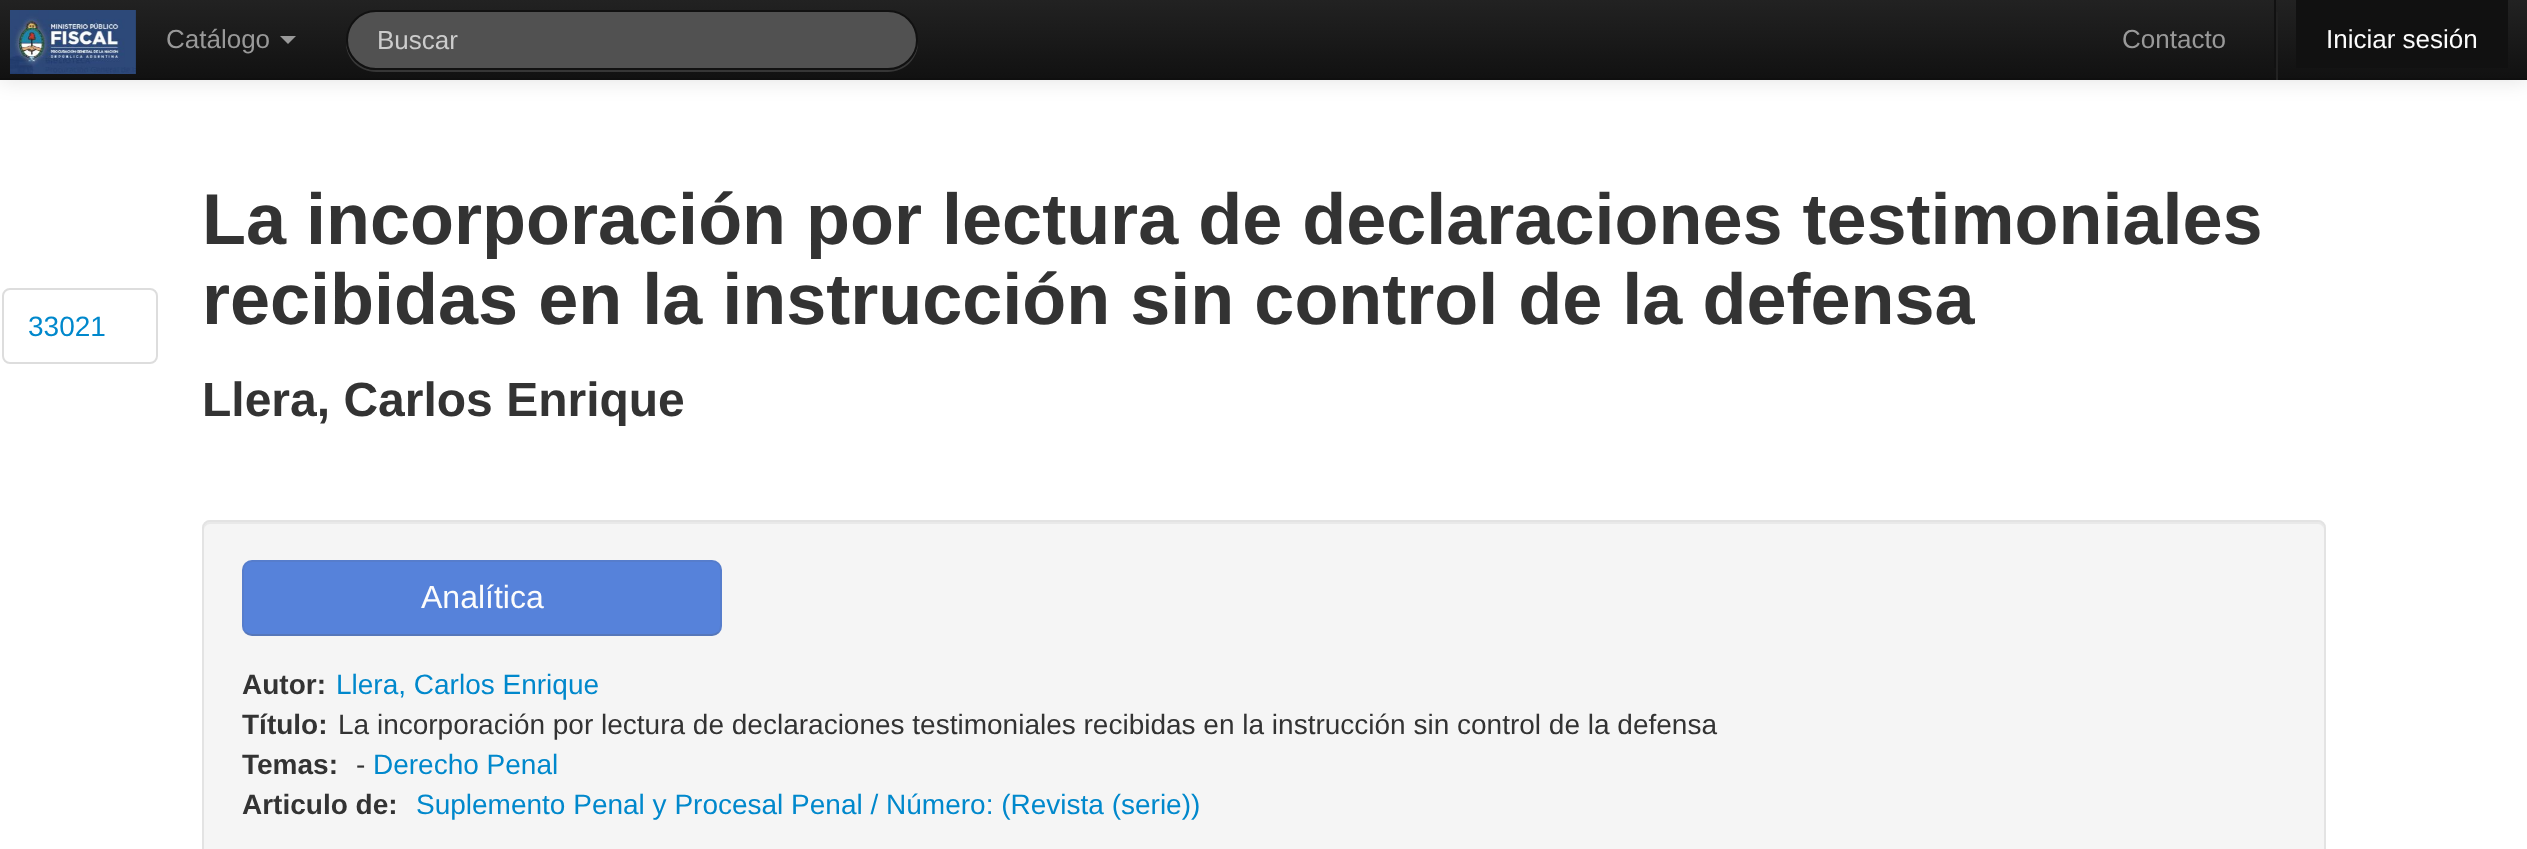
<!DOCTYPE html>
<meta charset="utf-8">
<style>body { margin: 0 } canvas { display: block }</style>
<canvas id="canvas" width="2527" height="849"></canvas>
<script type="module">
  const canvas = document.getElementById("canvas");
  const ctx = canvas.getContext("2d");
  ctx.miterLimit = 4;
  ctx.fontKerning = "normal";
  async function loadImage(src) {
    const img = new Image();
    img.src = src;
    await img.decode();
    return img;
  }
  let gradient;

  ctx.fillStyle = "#ffffff";
  ctx.fillRect(0, 0, 2527, 849);
  ctx.fillStyle = "rgba(0, 0, 0, 0.1)";
  ctx.filter = "blur(10px)";
  ctx.beginPath();
  ctx.rect(0, 2, 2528, 80);
  ctx.fill();
  ctx.filter = "none";
  gradient = ctx.createLinearGradient(1264, 0, 1264, 80);
  gradient.addColorStop(0, "#222222");
  gradient.addColorStop(1, "#111111");
  ctx.fillStyle = gradient;
  ctx.fillRect(0, 0, 2527, 78);
  ctx.fillStyle = "#0f0f0f";
  ctx.fillRect(0, 78, 2527, 2);
  ctx.drawImage(await loadImage("img1.png"), 10, 10, 126, 64);
  ctx.font = "26px Liberation Sans";
  ctx.fillStyle = "#999999";
  ctx.fillText("Catálogo", 166, 48);
  ctx.beginPath();
  ctx.moveTo(280, 36);
  ctx.lineTo(296, 36);
  ctx.lineTo(288, 44);
  ctx.closePath();
  ctx.fill();
  ctx.fillStyle = "rgba(255, 255, 255, 0.15)";
  ctx.beginPath();
  ctx.moveTo(346, 41);
  ctx.bezierCurveTo(345, 58, 359, 72, 376, 72);
  ctx.lineTo(888, 72);
  ctx.bezierCurveTo(905, 72, 919, 58, 918, 41);
  ctx.bezierCurveTo(917, 57, 904, 70, 888, 70);
  ctx.lineTo(376, 70);
  ctx.bezierCurveTo(360, 70, 347, 57, 346, 41);
  ctx.closePath();
  ctx.fill();
  ctx.fillStyle = "#515151";
  ctx.beginPath();
  ctx.roundRect(347, 11, 570, 58, 29);
  ctx.fill();
  ctx.strokeStyle = "#111111";
  ctx.lineWidth = 2;
  ctx.stroke();
  ctx.fillStyle = "#cccccc";
  ctx.fillText("Buscar", 377, 49);
  ctx.fillStyle = "#999999";
  ctx.fillText("Contacto", 2122, 48);
  ctx.fillStyle = "#222222";
  ctx.fillRect(2276, 12, 2, 68);
  ctx.fillStyle = "#111111";
  ctx.fillRect(2274, 0, 2, 68);
  ctx.fillRect(2296, 0, 212, 68);
  ctx.fillStyle = "#fcfcfc";
  ctx.fillText("Iniciar sesión", 2326, 48);
  ctx.beginPath();
  ctx.roundRect(3, 289, 154, 74, 7);
  ctx.strokeStyle = "#dddddd";
  ctx.stroke();
  ctx.font = "28px Liberation Sans";
  ctx.fillStyle = "#0088cc";
  ctx.fillText("33021", 28, 336);
  ctx.font = "bold 72px Liberation Sans";
  ctx.fillStyle = "#333333";
  ctx.fillText("La incorporación por lectura de declaraciones testimoniales", 202, 244);
  ctx.fillText("recibidas en la instrucción sin control de la defensa", 202, 324);
  ctx.font = "bold 48px Liberation Sans";
  ctx.fillText("Llera, Carlos Enrique", 202, 416);
  ctx.fillStyle = "#f5f5f5";
  ctx.beginPath();
  ctx.roundRect(202, 520, 2124, 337, 8);
  ctx.fill();
  ctx.fillStyle = "#e9e9e9";
  ctx.beginPath();
  ctx.moveTo(210, 524);
  ctx.lineTo(2318, 524);
  ctx.bezierCurveTo(2321, 524, 2324, 527, 2324, 530);
  ctx.bezierCurveTo(2324, 526, 2323, 522, 2318, 522);
  ctx.lineTo(210, 522);
  ctx.bezierCurveTo(205, 522, 204, 526, 204, 530);
  ctx.bezierCurveTo(204, 527, 207, 524, 210, 524);
  ctx.closePath();
  ctx.fill();
  ctx.beginPath();
  ctx.roundRect(203, 521, 2122, 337, 7);
  ctx.strokeStyle = "#e3e3e3";
  ctx.stroke();
  ctx.fillStyle = "#5682da";
  ctx.beginPath();
  ctx.roundRect(242, 560, 480, 76, 10);
  ctx.fill();
  ctx.beginPath();
  ctx.moveTo(718.5, 632.5);
  ctx.bezierCurveTo(716.5, 634, 714.5, 635, 712, 635);
  ctx.lineTo(252, 635);
  ctx.bezierCurveTo(249.5, 635, 247.5, 634, 245.5, 632.5);
  ctx.strokeStyle = "rgba(86, 86, 86, 0.25)";
  ctx.stroke();
  ctx.beginPath();
  ctx.moveTo(245.5, 632.5);
  ctx.bezierCurveTo(244, 630.5, 243, 628.5, 243, 626);
  ctx.lineTo(243, 570);
  ctx.bezierCurveTo(243, 567.5, 244, 565.5, 245.5, 563.5);
  ctx.bezierCurveTo(247.5, 562, 249.5, 561, 252, 561);
  ctx.lineTo(712, 561);
  ctx.bezierCurveTo(714.5, 561, 716.5, 562, 718.5, 563.5);
  ctx.bezierCurveTo(720, 565.5, 721, 567.5, 721, 570);
  ctx.lineTo(721, 626);
  ctx.bezierCurveTo(721, 628.5, 720, 630.5, 718.5, 632.5);
  ctx.strokeStyle = "rgba(86, 86, 86, 0.1)";
  ctx.stroke();
  ctx.font = "32px Liberation Sans";
  ctx.fillStyle = "#fcfcfc";
  ctx.fillText("Analítica", 421, 608);
  ctx.font = "bold 28px Liberation Sans";
  ctx.fillStyle = "#333333";
  ctx.fillText("Autor:", 242, 694);
  ctx.font = "28px Liberation Sans";
  ctx.fillStyle = "#0088cc";
  ctx.fillText("Llera, Carlos Enrique", 336, 694);
  ctx.font = "bold 28px Liberation Sans";
  ctx.fillStyle = "#333333";
  ctx.fillText("Título:", 242, 734);
  ctx.font = "28px Liberation Sans";
  ctx.fillText("La incorporación por lectura de declaraciones testimoniales recibidas en la instrucción sin control de la defensa", 338, 734);
  ctx.font = "bold 28px Liberation Sans";
  ctx.fillText("Temas:", 242, 774);
  ctx.font = "28px Liberation Sans";
  ctx.fillText("-", 356, 774);
  ctx.fillStyle = "#0088cc";
  ctx.fillText("Derecho Penal", 373, 774);
  ctx.font = "bold 28px Liberation Sans";
  ctx.fillStyle = "#333333";
  ctx.fillText("Articulo de:", 242, 814);
  ctx.font = "28px Liberation Sans";
  ctx.fillStyle = "#0088cc";
  ctx.fillText("Suplemento Penal y Procesal Penal / Número: (Revista (serie))", 416, 814);
</script>
